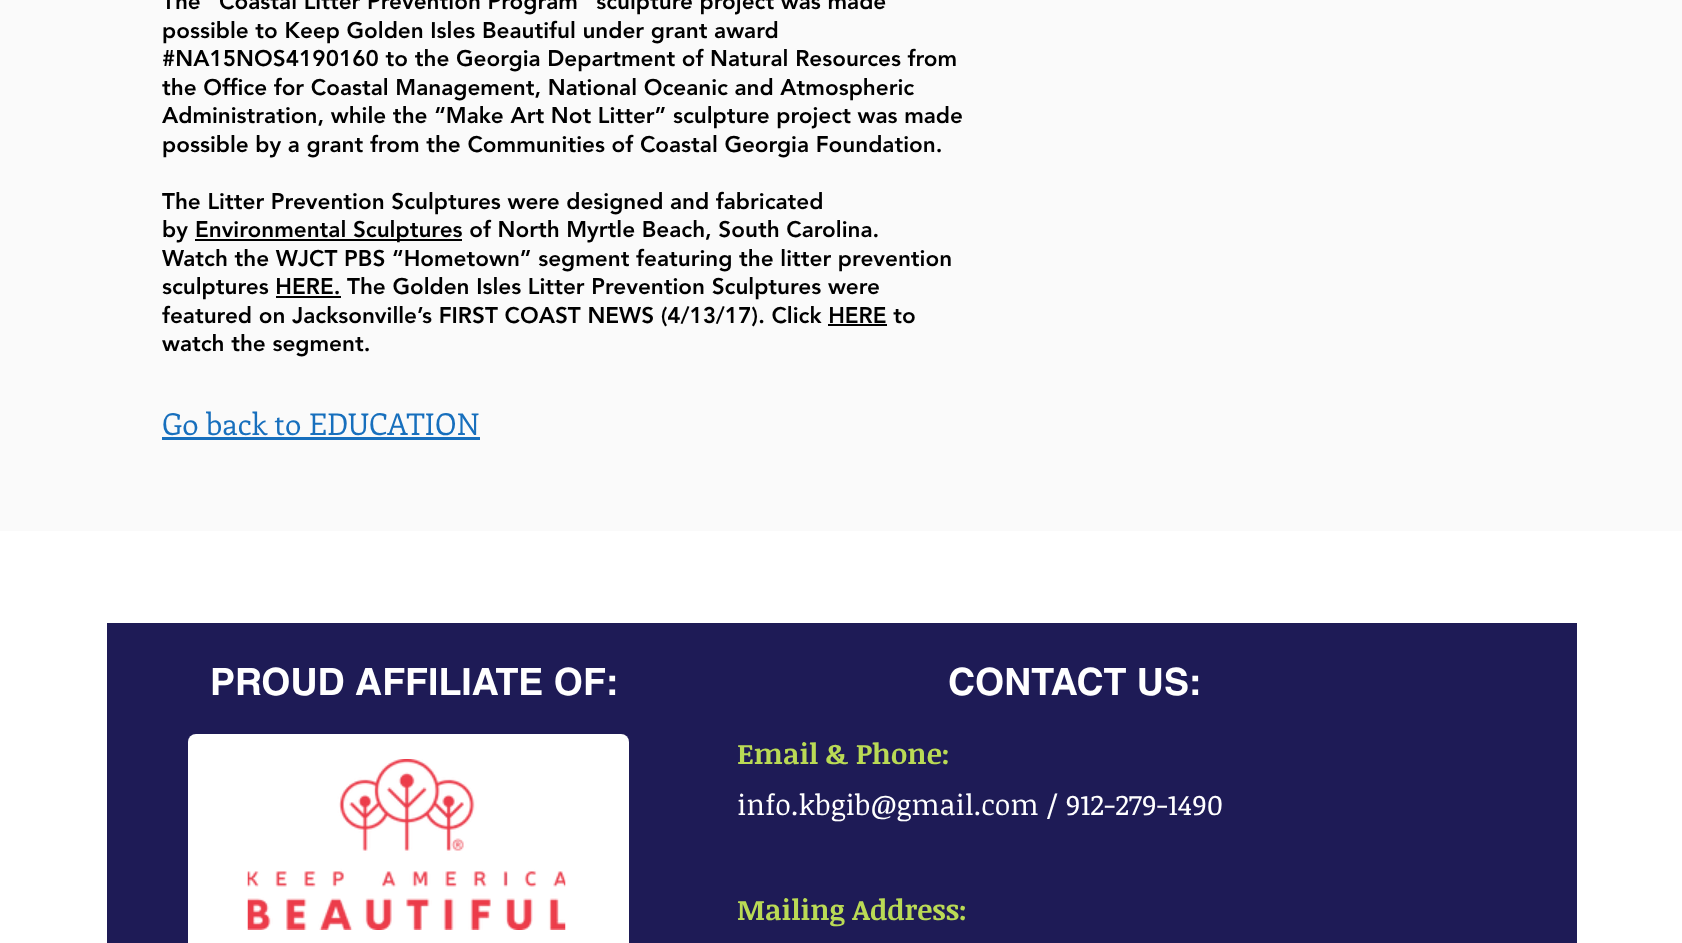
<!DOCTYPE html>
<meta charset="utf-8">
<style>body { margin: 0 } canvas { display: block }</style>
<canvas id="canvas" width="1682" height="943"></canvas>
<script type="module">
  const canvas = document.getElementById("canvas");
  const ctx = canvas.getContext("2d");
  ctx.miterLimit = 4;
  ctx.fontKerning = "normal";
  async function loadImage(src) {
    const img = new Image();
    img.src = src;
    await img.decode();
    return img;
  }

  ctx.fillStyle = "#ffffff";
  ctx.fillRect(0, 0, 1682, 943);
  ctx.fillStyle = "#fafafa";
  ctx.fillRect(0, 0, 1682, 531);
  ctx.font = "900 22.5px 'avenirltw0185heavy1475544'";
  ctx.fillStyle = "#000000";
  ctx.fillText("The “Coastal Litter Prevention Program” sculpture project was made", 162, 9);
  ctx.fillText("possible to Keep Golden Isles Beautiful under grant award", 162, 38);
  ctx.fillText("#NA15NOS4190160 to the Georgia Department of Natural Resources from", 162, 66);
  ctx.fillText("the Office for Coastal Management, National Oceanic and Atmospheric", 162, 95);
  ctx.fillText("Administration, while the “Make Art Not Litter” sculpture project was made", 162, 123);
  ctx.fillText("possible by a grant from the Communities of Coastal Georgia Foundation.", 162, 152);
  ctx.fillText("The Litter Prevention Sculptures were designed and fabricated", 162, 209);
  ctx.fillText("by", 162, 237);
  ctx.fillRect(195, 239, 267, 2);
  ctx.fillText("Environmental Sculptures of North Myrtle Beach, South Carolina.", 195, 237);
  ctx.fillText("Watch the WJCT PBS “Hometown” segment featuring the litter prevention", 162, 266);
  ctx.fillText("sculptures HERE. The Golden Isles Litter Prevention Sculptures were", 162, 294);
  ctx.fillRect(276, 296, 65, 2);
  ctx.fillText("featured on Jacksonville’s FIRST COAST NEWS (4/13/17). Click HERE to", 162, 323);
  ctx.fillRect(828, 324, 59, 2);
  ctx.fillText("watch the segment.", 162, 351);
  ctx.font = "30px Enriqueta";
  ctx.fillStyle = "#176fbd";
  ctx.fillText("Go back to EDUCATION", 162, 435);
  ctx.fillRect(162, 437, 318, 3);
  ctx.fillStyle = "#1e1b56";
  ctx.fillRect(107, 623, 1470, 320);
  ctx.font = "bold 37.5px helvetica";
  ctx.fillStyle = "#ffffff";
  ctx.fillText("PROUD AFFILIATE OF:", 210, 695);
  ctx.fillText("CONTACT US:", 948, 695);
  ctx.beginPath();
  ctx.roundRect(188, 734, 441, 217, 8);
  ctx.fill();
  ctx.font = "bold 28.5px Noticia Text";
  ctx.fillStyle = "#bada55";
  ctx.fillText("Email & Phone:", 737, 764);
  ctx.font = "28.5px Noticia Text";
  ctx.fillStyle = "#ffffff";
  ctx.fillText("info.kbgib@gmail.com / 912-279-1490", 737, 815);
  ctx.drawImage(await loadImage("img1.png"), 247, 759, 319, 171);
  ctx.font = "bold 28.5px Noticia Text";
  ctx.fillStyle = "#bada55";
  ctx.fillText("Mailing Address:", 737, 920);
</script>
